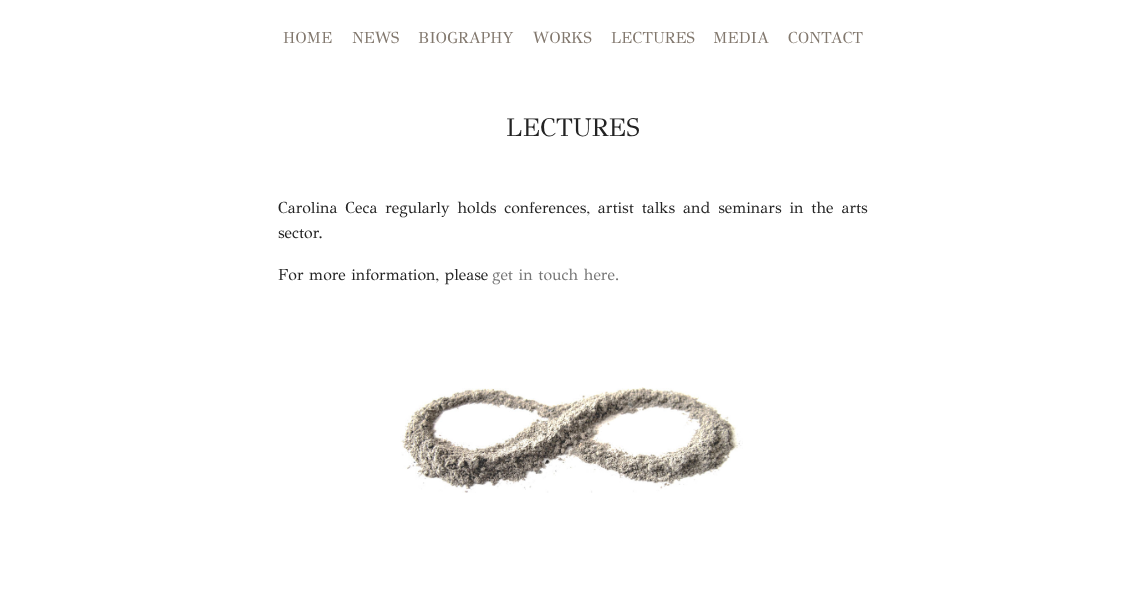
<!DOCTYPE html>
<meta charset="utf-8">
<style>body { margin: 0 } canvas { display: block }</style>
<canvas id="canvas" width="1146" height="597"></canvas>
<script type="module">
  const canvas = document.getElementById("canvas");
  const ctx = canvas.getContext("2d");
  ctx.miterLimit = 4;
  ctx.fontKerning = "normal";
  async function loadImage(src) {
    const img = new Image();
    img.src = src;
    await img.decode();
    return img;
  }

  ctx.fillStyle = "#ffffff";
  ctx.fillRect(0, 0, 1146, 597);
  ctx.font = "16px GFS Didot";
  ctx.fillStyle = "#82786e";
  ctx.fillText("HOME", 283, 43);
  ctx.fillText("NEWS", 352, 43);
  ctx.fillText("BIOGRAPHY", 418, 43);
  ctx.fillText("WORKS", 533, 43);
  ctx.fillText("LECTURES", 611, 43);
  ctx.fillText("MEDIA", 713, 43);
  ctx.fillText("CONTACT", 788, 43);
  ctx.font = "25.5px GFS Didot";
  ctx.fillStyle = "#232323";
  ctx.fillText("LECTURES", 506, 136);
  ctx.wordSpacing = "2.25px";
  ctx.font = "16px GFS Didot";
  ctx.fillText("Carolina Ceca regularly holds conferences, artist talks and seminars in the arts", 278, 213);
  ctx.wordSpacing = "0px";
  ctx.fillText("sector.", 278, 238);
  ctx.fillText("For more information, please", 278, 280);
  ctx.fillStyle = "#767676";
  ctx.fillText("get in touch here.", 492, 280);
  ctx.drawImage(await loadImage("img1.png"), 400, 387, 343, 106);
</script>
